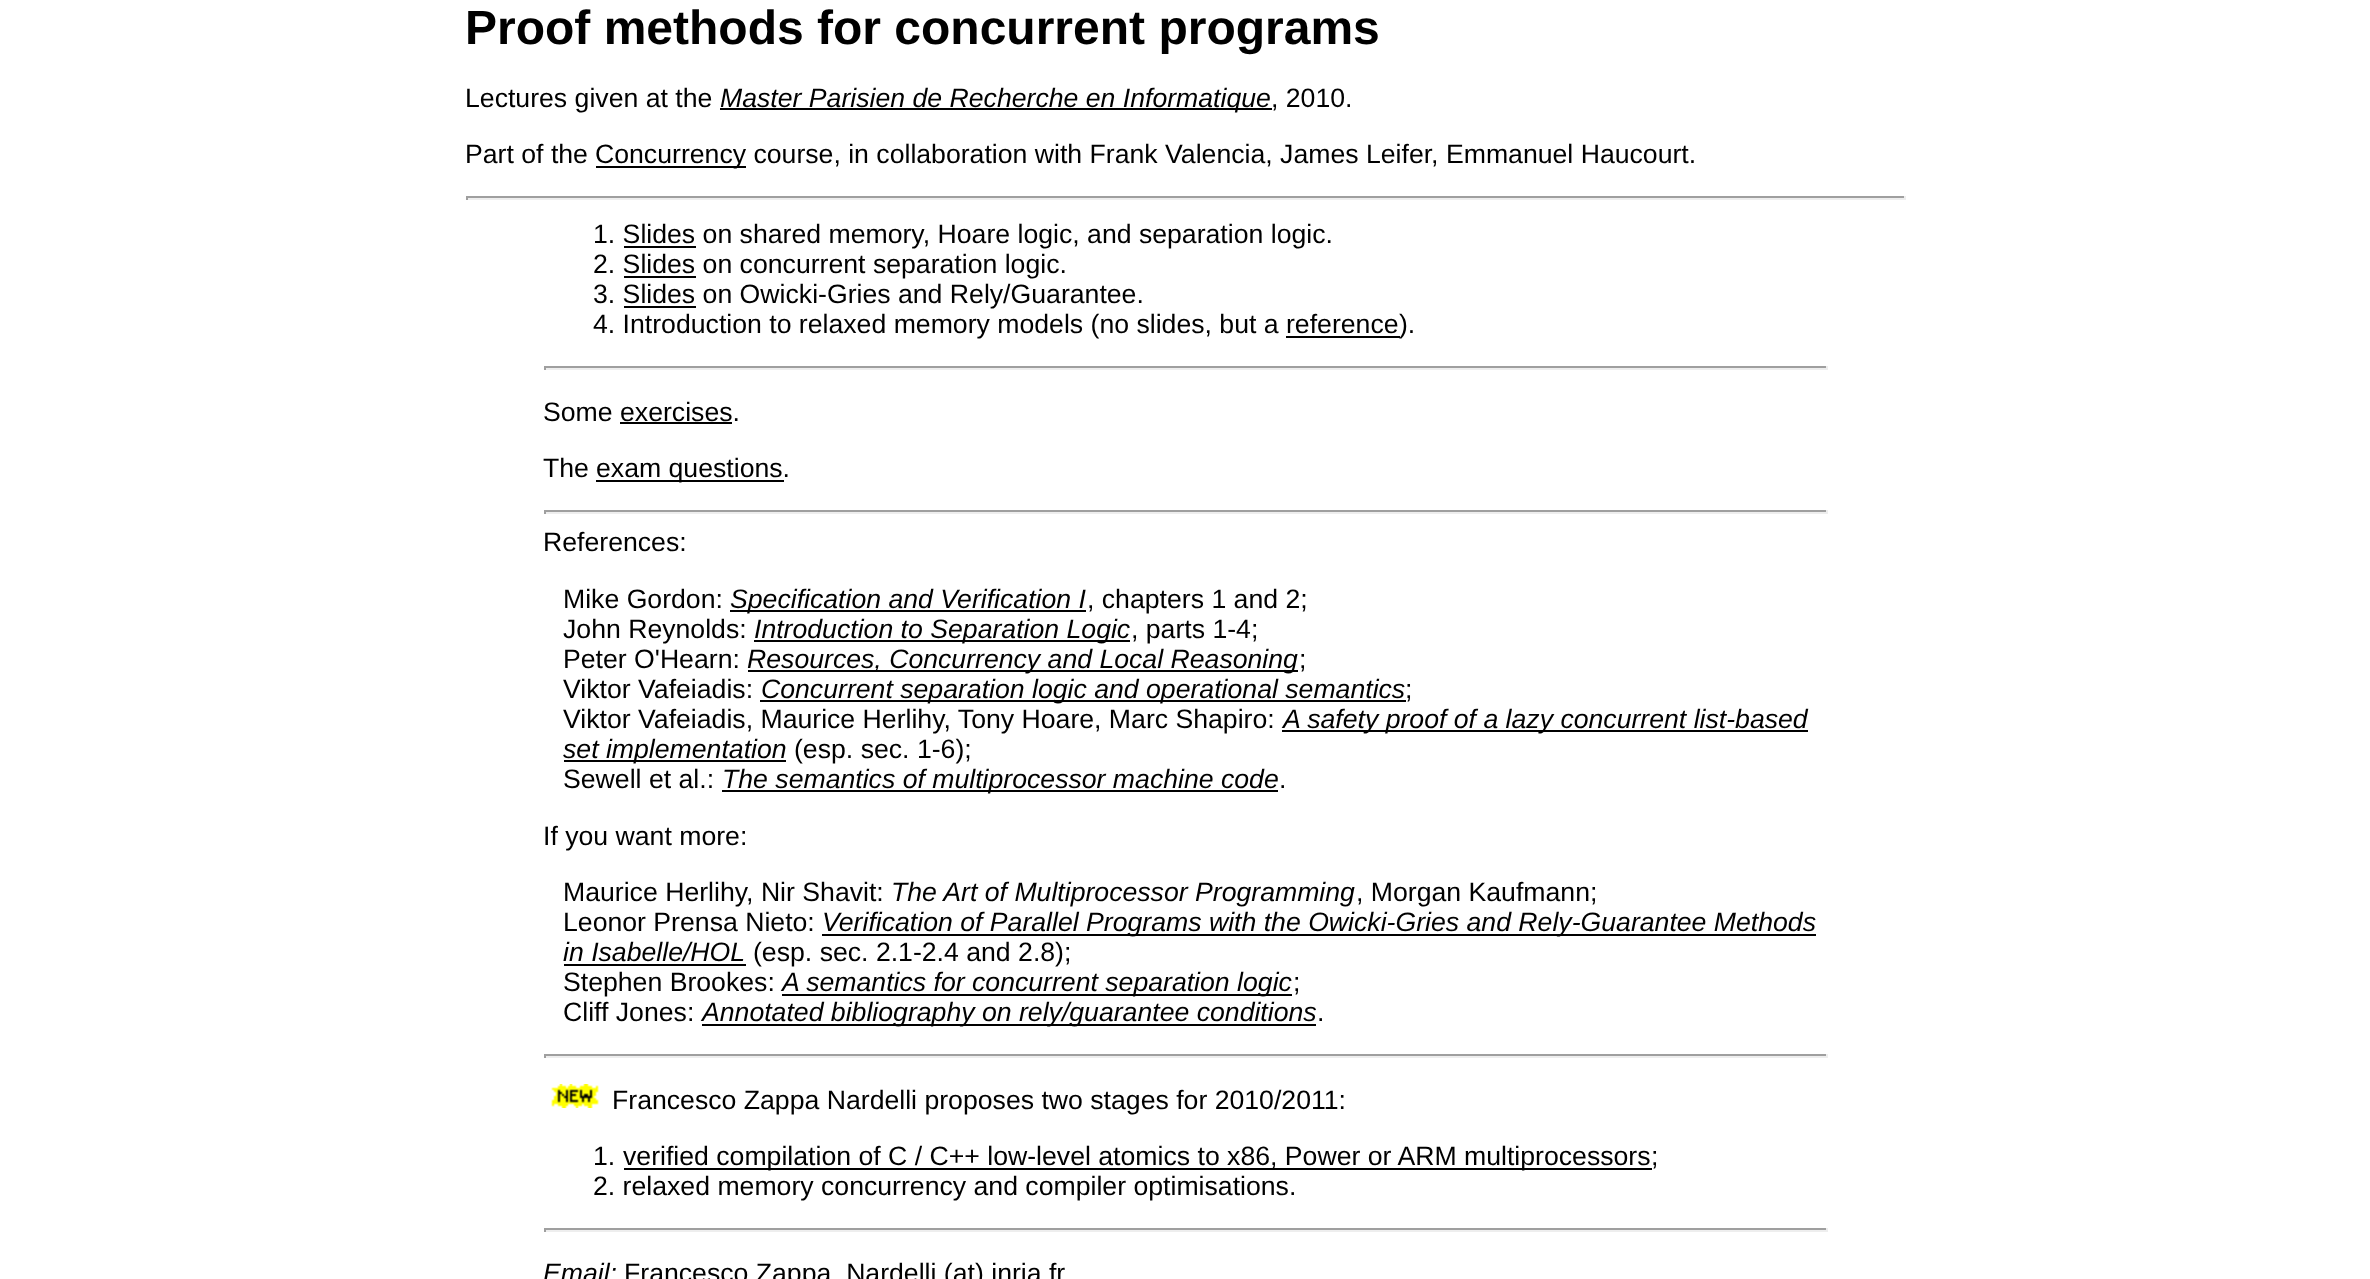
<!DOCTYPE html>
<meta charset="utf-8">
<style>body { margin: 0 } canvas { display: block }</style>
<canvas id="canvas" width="2370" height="1279"></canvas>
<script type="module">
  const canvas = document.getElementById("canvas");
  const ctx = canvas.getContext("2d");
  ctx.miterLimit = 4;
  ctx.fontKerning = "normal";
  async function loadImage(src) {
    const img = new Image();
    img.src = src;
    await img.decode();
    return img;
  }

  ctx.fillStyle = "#ffffff";
  ctx.fillRect(0, 0, 2370, 1279);
  ctx.font = "bold 48px Liberation Sans";
  ctx.fillStyle = "#000000";
  ctx.fillText("Proof methods for concurrent programs", 465, 44);
  ctx.font = "26.65px Liberation Sans";
  ctx.fillText("Lectures given at the", 465, 107);
  ctx.fillRect(720, 108, 552, 2);
  ctx.font = "italic 26.65px Liberation Sans";
  ctx.fillText("Master Parisien de Recherche en Informatique", 720, 107);
  ctx.font = "26.65px Liberation Sans";
  ctx.fillText(", 2010.", 1271, 107);
  ctx.fillText("Part of the", 465, 163);
  ctx.fillRect(596, 166, 150, 2);
  ctx.fillText("Concurrency course, in collaboration with Frank Valencia, James Leifer, Emmanuel Haucourt.", 595, 163);
  ctx.fillStyle = "#9f9f9f";
  ctx.fillRect(466, 196, 1440, 2);
  ctx.fillStyle = "#eeeeee";
  ctx.fillRect(1904, 196, 2, 4);
  ctx.fillRect(466, 198, 1440, 2);
  ctx.fillStyle = "#9f9f9f";
  ctx.fillRect(466, 196, 2, 4);
  ctx.fillStyle = "#000000";
  ctx.fillText("1. Slides on shared memory, Hoare logic, and separation logic.", 593, 243);
  ctx.fillRect(624, 246, 72, 2);
  ctx.fillText("2. Slides on concurrent separation logic.", 593, 273);
  ctx.fillRect(624, 276, 72, 2);
  ctx.fillText("3. Slides on Owicki-Gries and Rely/Guarantee.", 593, 303);
  ctx.fillRect(624, 306, 72, 2);
  ctx.fillText("4. Introduction to relaxed memory models (no slides, but a reference", 593, 333);
  ctx.fillRect(1286, 336, 114, 2);
  ctx.fillText(").", 1399, 333);
  ctx.fillStyle = "#9f9f9f";
  ctx.fillRect(544, 366, 1284, 2);
  ctx.fillStyle = "#eeeeee";
  ctx.fillRect(1826, 366, 2, 4);
  ctx.fillRect(544, 368, 1284, 2);
  ctx.fillStyle = "#9f9f9f";
  ctx.fillRect(544, 366, 2, 4);
  ctx.fillStyle = "#000000";
  ctx.fillText("Some exercises.", 543, 421);
  ctx.fillRect(620, 422, 112, 2);
  ctx.fillText("The", 543, 477);
  ctx.fillRect(596, 480, 188, 2);
  ctx.fillText("exam questions.", 596, 477);
  ctx.fillStyle = "#9f9f9f";
  ctx.fillRect(544, 510, 1284, 2);
  ctx.fillStyle = "#eeeeee";
  ctx.fillRect(1826, 510, 2, 4);
  ctx.fillRect(544, 512, 1284, 2);
  ctx.fillStyle = "#9f9f9f";
  ctx.fillRect(544, 510, 2, 4);
  ctx.fillStyle = "#000000";
  ctx.fillText("References:", 543, 551);
  ctx.fillText("Mike Gordon:", 563, 608);
  ctx.fillRect(730, 610, 356, 2);
  ctx.font = "italic 26.65px Liberation Sans";
  ctx.fillText("Specification and Verification I", 730, 608);
  ctx.font = "26.65px Liberation Sans";
  ctx.fillText(", chapters 1 and 2;", 1087, 608);
  ctx.fillText("John Reynolds:", 563, 638);
  ctx.fillRect(754, 640, 376, 2);
  ctx.font = "italic 26.65px Liberation Sans";
  ctx.fillText("Introduction to Separation Logic", 754, 638);
  ctx.font = "26.65px Liberation Sans";
  ctx.fillText(", parts 1-4;", 1131, 638);
  ctx.fillText("Peter O'Hearn:", 563, 668);
  ctx.fillRect(748, 670, 550, 2);
  ctx.font = "italic 26.65px Liberation Sans";
  ctx.fillText("Resources, Concurrency and Local Reasoning", 747, 668);
  ctx.font = "26.65px Liberation Sans";
  ctx.fillText(";", 1299, 668);
  ctx.fillText("Viktor Vafeiadis:", 563, 698);
  ctx.fillRect(760, 700, 646, 2);
  ctx.font = "italic 26.65px Liberation Sans";
  ctx.fillText("Concurrent separation logic and operational semantics", 761, 698);
  ctx.font = "26.65px Liberation Sans";
  ctx.fillText(";", 1405, 698);
  ctx.fillText("Viktor Vafeiadis, Maurice Herlihy, Tony Hoare, Marc Shapiro:", 563, 728);
  ctx.fillRect(1282, 730, 526, 2);
  ctx.font = "italic 26.65px Liberation Sans";
  ctx.fillText("A safety proof of a lazy concurrent list-based", 1283, 728);
  ctx.fillRect(564, 760, 222, 2);
  ctx.fillText("set implementation", 563, 758);
  ctx.font = "26.65px Liberation Sans";
  ctx.fillText("(esp. sec. 1-6);", 794, 758);
  ctx.fillText("Sewell et al.:", 563, 788);
  ctx.fillRect(722, 790, 556, 2);
  ctx.font = "italic 26.65px Liberation Sans";
  ctx.fillText("The semantics of multiprocessor machine code", 722, 788);
  ctx.font = "26.65px Liberation Sans";
  ctx.fillText(".", 1279, 788);
  ctx.fillText("If you want more:", 543, 845);
  ctx.fillText("Maurice Herlihy, Nir Shavit:", 563, 901);
  ctx.font = "italic 26.65px Liberation Sans";
  ctx.fillText("The Art of Multiprocessor Programming", 891, 901);
  ctx.font = "26.65px Liberation Sans";
  ctx.fillText(", Morgan Kaufmann;", 1356, 901);
  ctx.fillText("Leonor Prensa Nieto:", 563, 931);
  ctx.fillRect(822, 934, 994, 2);
  ctx.font = "italic 26.65px Liberation Sans";
  ctx.fillText("Verification of Parallel Programs with the Owicki-Gries and Rely-Guarantee Methods", 822, 931);
  ctx.fillText("in Isabelle/HOL", 563, 961);
  ctx.fillRect(564, 964, 182, 2);
  ctx.font = "26.65px Liberation Sans";
  ctx.fillText("(esp. sec. 2.1-2.4 and 2.8);", 753, 961);
  ctx.fillText("Stephen Brookes:", 563, 991);
  ctx.fillRect(782, 994, 510, 2);
  ctx.font = "italic 26.65px Liberation Sans";
  ctx.fillText("A semantics for concurrent separation logic", 782, 991);
  ctx.font = "26.65px Liberation Sans";
  ctx.fillText(";", 1293, 991);
  ctx.fillText("Cliff Jones:", 563, 1021);
  ctx.fillRect(702, 1024, 614, 2);
  ctx.font = "italic 26.65px Liberation Sans";
  ctx.fillText("Annotated bibliography on rely/guarantee conditions", 702, 1021);
  ctx.font = "26.65px Liberation Sans";
  ctx.fillText(".", 1317, 1021);
  ctx.fillStyle = "#9f9f9f";
  ctx.fillRect(544, 1054, 1284, 2);
  ctx.fillStyle = "#eeeeee";
  ctx.fillRect(1826, 1054, 2, 4);
  ctx.fillRect(544, 1056, 1284, 2);
  ctx.fillStyle = "#9f9f9f";
  ctx.fillRect(544, 1054, 2, 4);
  ctx.drawImage(await loadImage("img1.png"), 551, 1084, 48, 24);
  ctx.fillStyle = "#000000";
  ctx.fillText("Francesco Zappa Nardelli proposes two stages for 2010/2011:", 612, 1109);
  ctx.fillText("1.", 593, 1165);
  ctx.fillRect(624, 1168, 1028, 2);
  ctx.fillText("verified compilation of C / C++ low-level atomics to x86, Power or ARM multiprocessors", 623, 1165);
  ctx.fillText(";", 1651, 1165);
  ctx.fillText("2. relaxed memory concurrency and compiler optimisations.", 593, 1195);
  ctx.fillStyle = "#9f9f9f";
  ctx.fillRect(544, 1228, 1284, 2);
  ctx.fillStyle = "#eeeeee";
  ctx.fillRect(1826, 1228, 2, 4);
  ctx.fillRect(544, 1230, 1284, 2);
  ctx.fillStyle = "#9f9f9f";
  ctx.fillRect(544, 1228, 2, 4);
  ctx.font = "italic 26.65px Liberation Sans";
  ctx.fillStyle = "#000000";
  ctx.fillText("Email:", 543, 1282);
  ctx.font = "26.65px Liberation Sans";
  ctx.fillText("Francesco.Zappa_Nardelli (at) inria.fr", 624, 1282);
</script>
